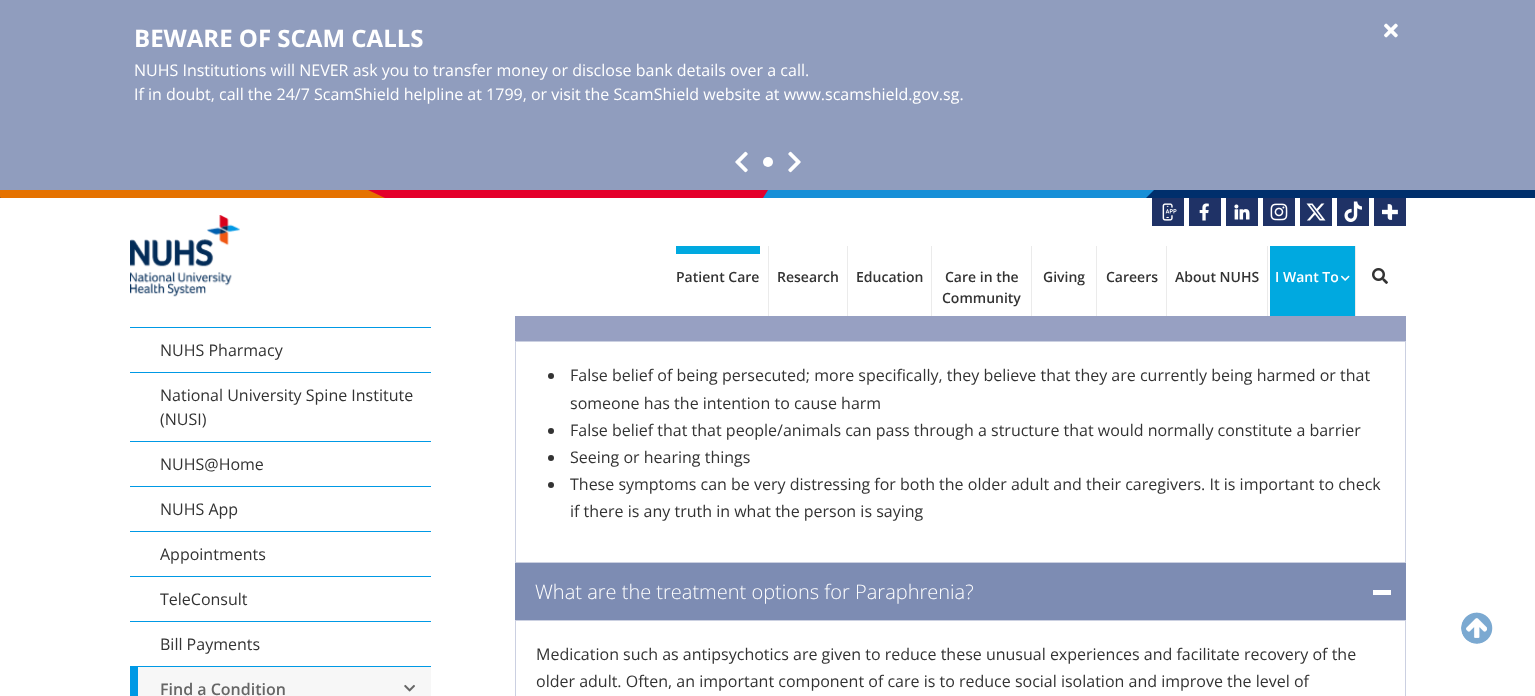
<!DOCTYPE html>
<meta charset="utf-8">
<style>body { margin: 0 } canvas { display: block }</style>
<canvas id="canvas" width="1535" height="696"></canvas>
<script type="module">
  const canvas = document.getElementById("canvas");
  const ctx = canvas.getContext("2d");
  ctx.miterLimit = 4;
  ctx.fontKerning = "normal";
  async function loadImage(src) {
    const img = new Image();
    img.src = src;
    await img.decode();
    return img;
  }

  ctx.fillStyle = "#ffffff";
  ctx.fillRect(0, 0, 1535, 696);
  ctx.fillStyle = "#909dbe";
  ctx.fillRect(0, 0, 1535, 190);
  ctx.font = "bold 24px Open Sans";
  ctx.fillStyle = "#ffffff";
  ctx.fillText("BEWARE OF SCAM CALLS", 134, 47);
  ctx.font = "16px Open Sans";
  ctx.fillText("NUHS Institutions will NEVER ask you to transfer money or disclose bank details over a call.", 134, 76);
  ctx.fillText("If in doubt, call the 24/7 ScamShield helpline at 1799, or visit the ScamShield website at www.scamshield.gov.sg.", 134, 100);
  ctx.drawImage(await loadImage("img1.png"), 735, 151, 13, 22);
  ctx.beginPath();
  ctx.arc(768, 162, 5, 0, Math.PI * 2);
  ctx.fill();
  ctx.drawImage(await loadImage("img2.png"), 788, 151, 13, 22);
  ctx.drawImage(await loadImage("img3.png"), 1384, 23, 14, 15);
  ctx.fillStyle = "#002f6c";
  ctx.fillRect(0, 190, 1535, 8);
  ctx.fillStyle = "#e4002b";
  ctx.fillRect(368, 190, 16, 7);
  ctx.fillStyle = "#178fd7";
  ctx.fillRect(763, 190, 7, 7);
  ctx.beginPath();
  ctx.moveTo(770, 190);
  ctx.lineTo(1154, 190);
  ctx.lineTo(1146, 198);
  ctx.lineTo(762, 198);
  ctx.closePath();
  ctx.fill();
  ctx.fillStyle = "#e4002b";
  ctx.beginPath();
  ctx.moveTo(384, 190);
  ctx.lineTo(768, 190);
  ctx.lineTo(763, 198);
  ctx.lineTo(379, 198);
  ctx.closePath();
  ctx.fill();
  ctx.fillStyle = "#e57200";
  ctx.beginPath();
  ctx.moveTo(-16, 190);
  ctx.lineTo(368, 190);
  ctx.lineTo(385, 198);
  ctx.lineTo(1, 198);
  ctx.closePath();
  ctx.fill();
  ctx.drawImage(await loadImage("img4.png"), 1152, 198, 32, 28);
  ctx.drawImage(await loadImage("img5.png"), 1189, 198, 32, 28);
  ctx.drawImage(await loadImage("img6.png"), 1226, 198, 32, 28);
  ctx.drawImage(await loadImage("img7.png"), 1263, 198, 32, 28);
  ctx.drawImage(await loadImage("img8.png"), 1300, 198, 32, 28);
  ctx.drawImage(await loadImage("img9.png"), 1337, 198, 32, 28);
  ctx.drawImage(await loadImage("img10.png"), 1374, 198, 32, 28);
  ctx.drawImage(await loadImage("img11.png"), 130, 215, 110, 82);
  ctx.fillStyle = "#ebebeb";
  ctx.fillRect(768, 246, 1, 70);
  ctx.fillStyle = "#00a9e0";
  ctx.fillRect(676, 246, 84, 8);
  ctx.font = "600 14px Open Sans";
  ctx.fillStyle = "#333333";
  ctx.fillText("Patient Care", 676, 282);
  ctx.fillStyle = "#ebebeb";
  ctx.fillRect(847, 246, 1, 70);
  ctx.fillStyle = "#333333";
  ctx.fillText("Research", 777, 282);
  ctx.fillStyle = "#ebebeb";
  ctx.fillRect(931, 246, 1, 70);
  ctx.fillStyle = "#333333";
  ctx.fillText("Education", 856, 282);
  ctx.fillStyle = "#ebebeb";
  ctx.fillRect(1031, 246, 1, 70);
  ctx.fillStyle = "#333333";
  ctx.fillText("Care in the", 945, 282);
  ctx.fillText("Community", 942, 303);
  ctx.fillStyle = "#ebebeb";
  ctx.fillRect(1096, 246, 1, 70);
  ctx.fillStyle = "#333333";
  ctx.fillText("Giving", 1043, 282);
  ctx.fillStyle = "#ebebeb";
  ctx.fillRect(1166, 246, 1, 70);
  ctx.fillStyle = "#333333";
  ctx.fillText("Careers", 1106, 282);
  ctx.fillStyle = "#ebebeb";
  ctx.fillRect(1267, 246, 1, 70);
  ctx.fillStyle = "#333333";
  ctx.fillText("About NUHS", 1175, 282);
  ctx.fillStyle = "#00a9e0";
  ctx.fillRect(1270, 246, 85, 70);
  ctx.fillStyle = "#ebebeb";
  ctx.fillRect(1355, 246, 1, 70);
  ctx.fillStyle = "#ffffff";
  ctx.fillText("I Want To", 1275, 282);
  ctx.drawImage(await loadImage("img12.png"), 1341, 275, 9, 6);
  ctx.drawImage(await loadImage("img13.png"), 1372, 268, 16, 16);
  ctx.fillStyle = "#0099e5";
  ctx.fillRect(130, 327, 301, 1);
  ctx.fillRect(130, 372, 301, 1);
  ctx.font = "16px Open Sans";
  ctx.fillStyle = "#333333";
  ctx.fillText("NUHS Pharmacy", 160, 356);
  ctx.fillStyle = "#0099e5";
  ctx.fillRect(130, 441, 301, 1);
  ctx.fillStyle = "#333333";
  ctx.fillText("National University Spine Institute", 160, 401);
  ctx.fillText("(NUSI)", 160, 425);
  ctx.fillStyle = "#0099e5";
  ctx.fillRect(130, 486, 301, 1);
  ctx.fillStyle = "#333333";
  ctx.fillText("NUHS@Home", 160, 470);
  ctx.fillStyle = "#0099e5";
  ctx.fillRect(130, 531, 301, 1);
  ctx.fillStyle = "#333333";
  ctx.fillText("NUHS App", 160, 515);
  ctx.fillStyle = "#0099e5";
  ctx.fillRect(130, 576, 301, 1);
  ctx.fillStyle = "#333333";
  ctx.fillText("Appointments", 160, 560);
  ctx.fillStyle = "#0099e5";
  ctx.fillRect(130, 621, 301, 1);
  ctx.fillStyle = "#333333";
  ctx.fillText("TeleConsult", 160, 605);
  ctx.fillStyle = "#0099e5";
  ctx.fillRect(130, 666, 301, 1);
  ctx.fillStyle = "#333333";
  ctx.fillText("Bill Payments", 160, 650);
  ctx.fillStyle = "#f7f7f7";
  ctx.fillRect(138, 667, 293, 29);
  ctx.fillStyle = "#0099e5";
  ctx.fillRect(130, 667, 8, 29);
  ctx.font = "600 16px Open Sans";
  ctx.fillStyle = "#666666";
  ctx.fillText("Find a Condition", 160, 695);
  ctx.drawImage(await loadImage("img14.png"), 404, 684, 11, 8);
  ctx.fillStyle = "#97a0c2";
  ctx.fillRect(515, 316, 891, 25);
  ctx.strokeStyle = "#cbd0e1";
  ctx.strokeRect(515.5, 341.5, 890, 221);
  ctx.fillStyle = "#333333";
  ctx.beginPath();
  ctx.arc(551, 376, 3, 0, Math.PI * 2);
  ctx.fill();
  ctx.font = "16px Open Sans";
  ctx.fillText("False belief of being persecuted; more specifically, they believe that they are currently being harmed or that", 570, 381);
  ctx.fillText("someone has the intention to cause harm", 570, 409);
  ctx.beginPath();
  ctx.arc(551, 431, 3, 0, Math.PI * 2);
  ctx.fill();
  ctx.fillText("False belief that that people/animals can pass through a structure that would normally constitute a barrier", 570, 436);
  ctx.beginPath();
  ctx.arc(551, 458, 3, 0, Math.PI * 2);
  ctx.fill();
  ctx.fillText("Seeing or hearing things", 570, 463);
  ctx.beginPath();
  ctx.arc(551, 485, 3, 0, Math.PI * 2);
  ctx.fill();
  ctx.fillText("These symptoms can be very distressing for both the older adult and their caregivers. It is important to check", 570, 490);
  ctx.fillText("if there is any truth in what the person is saying", 570, 517);
  ctx.fillStyle = "#7d8cb3";
  ctx.fillRect(515, 563, 891, 57);
  ctx.font = "300 20px Open Sans";
  ctx.fillStyle = "#ffffff";
  ctx.fillText("What are the treatment options for Paraphrenia?", 535, 599);
  ctx.fillRect(1373, 590, 18, 5);
  ctx.strokeRect(515.5, 620.5, 890, 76);
  ctx.font = "16px Open Sans";
  ctx.fillStyle = "#333333";
  ctx.fillText("Medication such as antipsychotics are given to reduce these unusual experiences and facilitate recovery of the", 536, 660);
  ctx.fillText("older adult. Often, an important component of care is to reduce social isolation and improve the level of", 536, 687);
  ctx.drawImage(await loadImage("img15.png"), 1461, 612, 32, 32);
</script>
